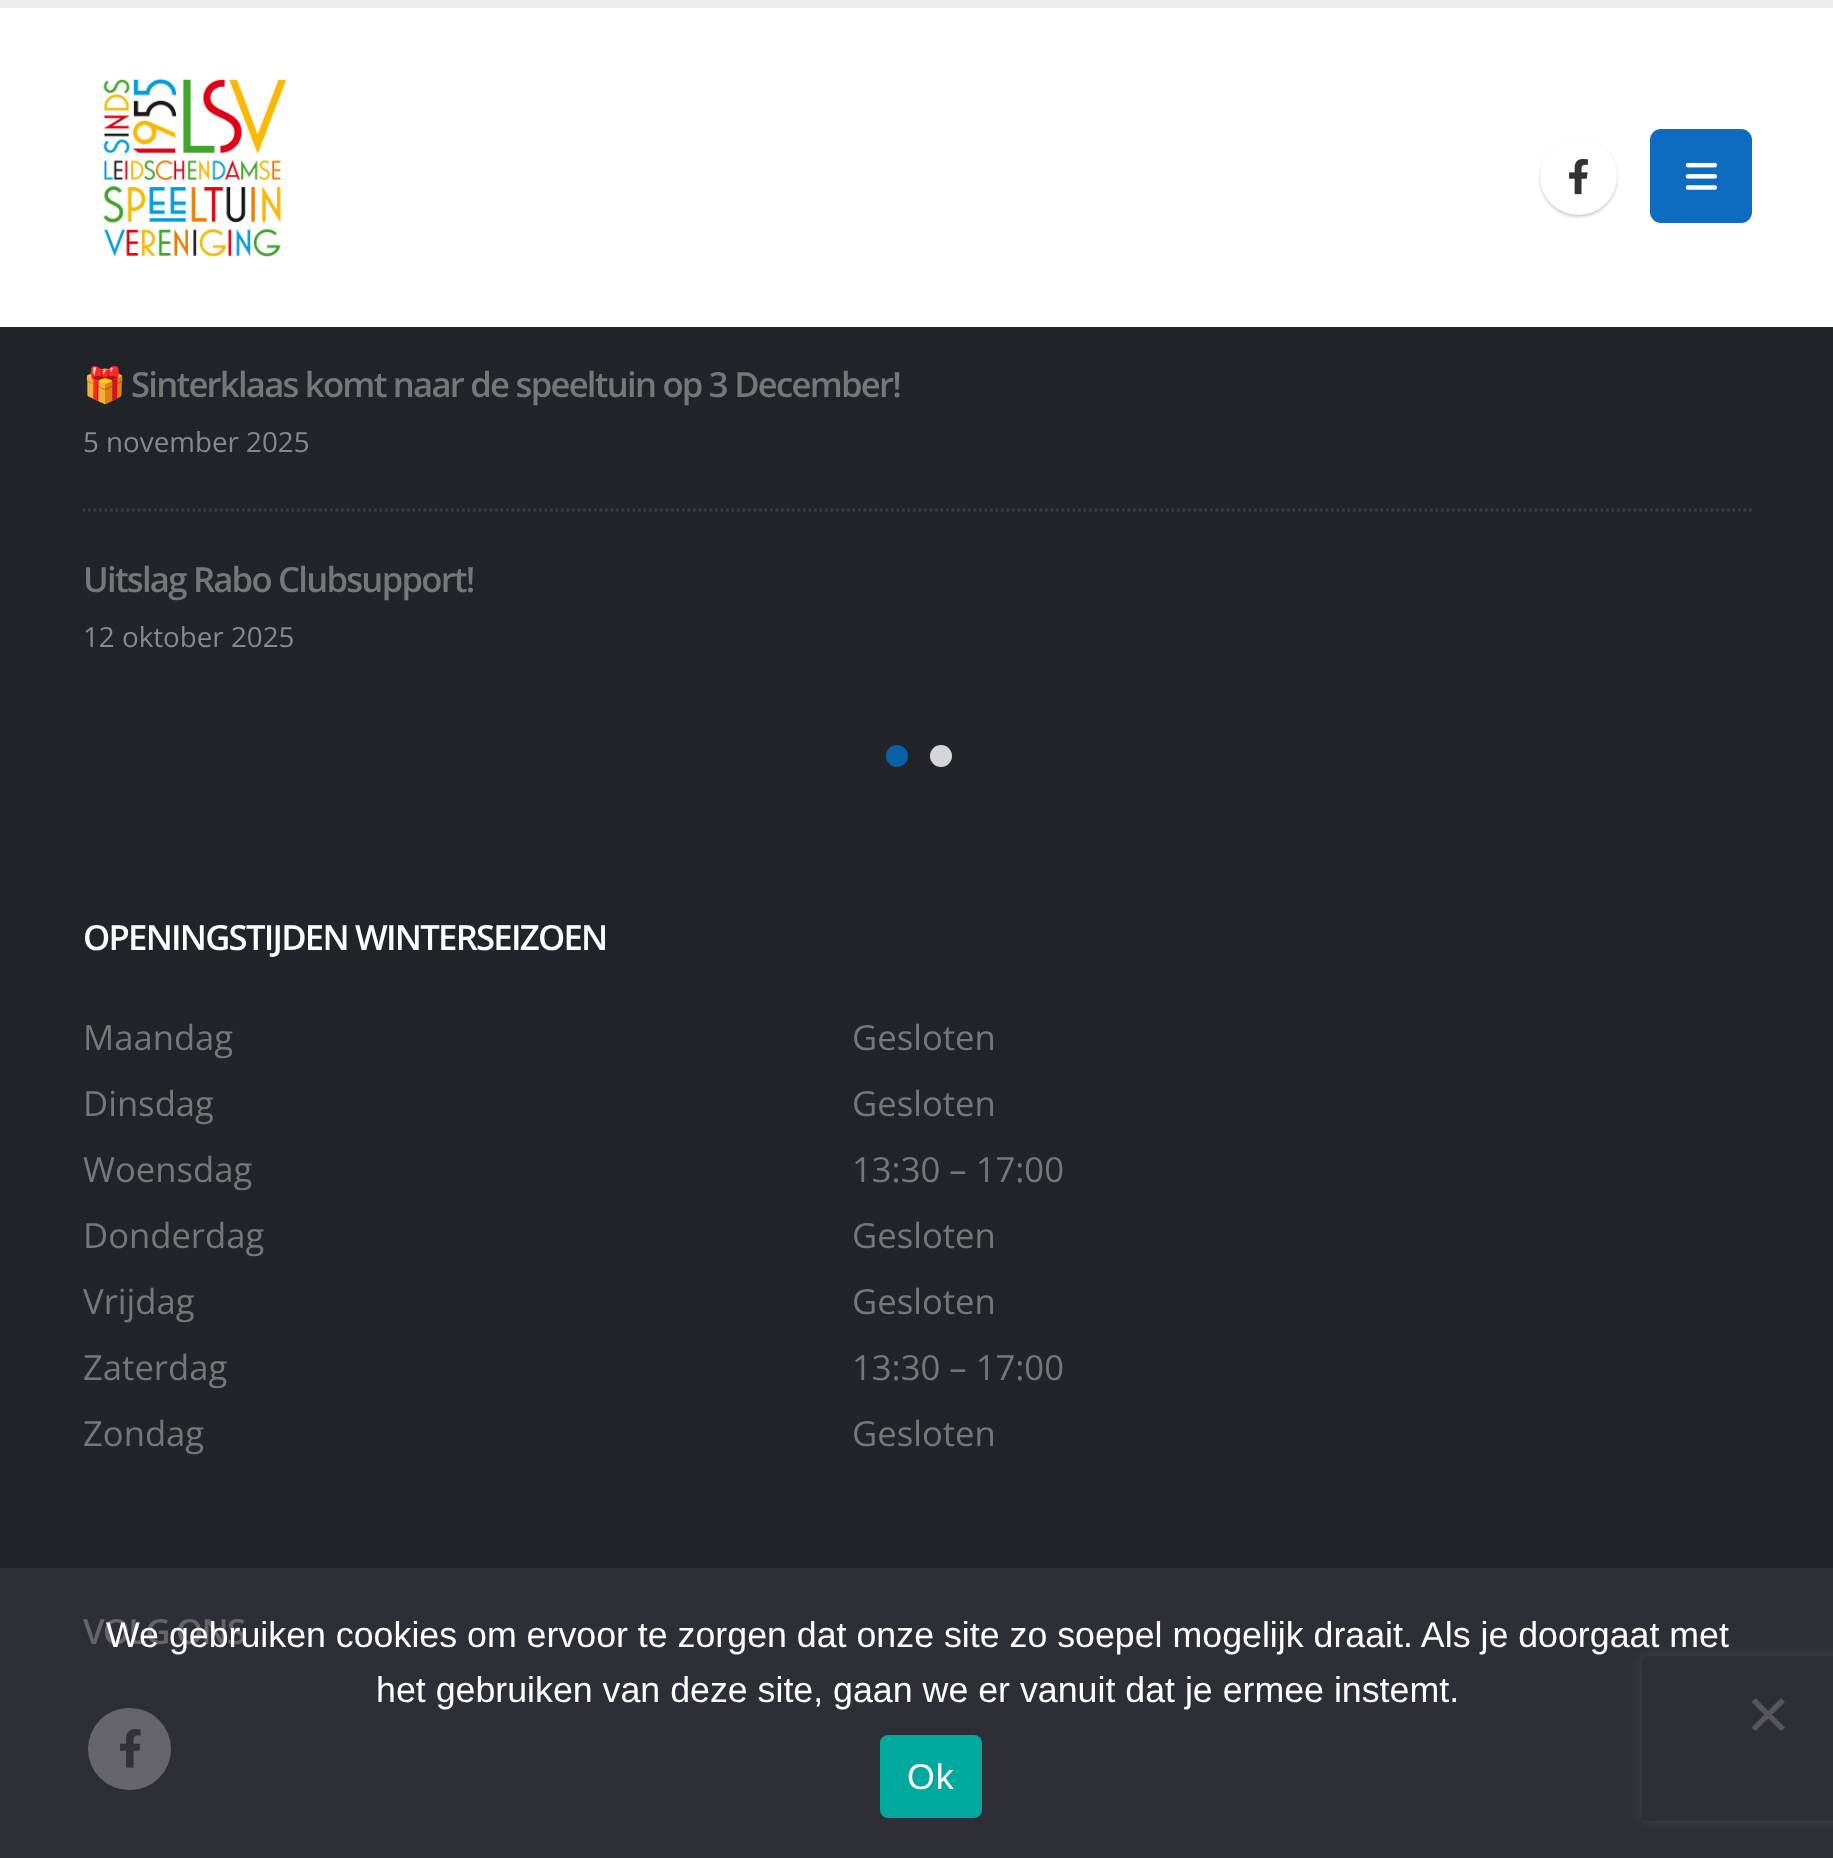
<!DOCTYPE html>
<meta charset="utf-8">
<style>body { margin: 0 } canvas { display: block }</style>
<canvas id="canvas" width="1833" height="1858"></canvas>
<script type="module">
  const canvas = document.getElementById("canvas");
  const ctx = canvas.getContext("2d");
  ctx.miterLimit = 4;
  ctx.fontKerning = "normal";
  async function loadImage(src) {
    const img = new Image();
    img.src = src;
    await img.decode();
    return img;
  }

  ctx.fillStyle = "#212529";
  ctx.fillRect(0, 0, 1833, 1858);
  ctx.fillStyle = "#ffffff";
  ctx.fillRect(0, 8, 1833, 319);
  ctx.fillStyle = "#ededed";
  ctx.fillRect(0, 0, 1833, 8);
  ctx.drawImage(await loadImage("img1.png"), 101, 76, 187, 183);
  ctx.fillStyle = "rgba(0, 0, 0, 0.2)";
  ctx.filter = "blur(1.5px)";
  ctx.beginPath();
  ctx.roundRect(1540, 140, 77, 77, 38.5);
  ctx.fill();
  ctx.filter = "none";
  ctx.fillStyle = "#ffffff";
  ctx.beginPath();
  ctx.arc(1578.5, 176.5, 38.5, 0, Math.PI * 2);
  ctx.fill();
  ctx.drawImage(await loadImage("img2.png"), 1569, 159, 19, 36);
  ctx.fillStyle = "#0d6cbf";
  ctx.beginPath();
  ctx.roundRect(1650, 129, 102, 94, 11);
  ctx.fill();
  ctx.drawImage(await loadImage("img3.png"), 1685, 162, 32, 28);
  ctx.fillStyle = "#2e2f36";
  ctx.fillRect(0, 1568, 1833, 290);
  ctx.save();
  ctx.beginPath();
  ctx.rect(83, 162, 1669, 542);
  ctx.clip();
  ctx.letterSpacing = "-1.75px";
  ctx.font = "bold 34.65px Noto Color Emoji";
  ctx.fillStyle = "#777777";
  ctx.fillText("🎁", 83, 397);
  ctx.restore();
  ctx.letterSpacing = "-1.75px";
  ctx.font = "600 34.65px Open Sans";
  ctx.fillStyle = "#777777";
  ctx.fillText("Sinterklaas komt naar de speeltuin op 3 December!", 131, 397);
  ctx.letterSpacing = "0px";
  ctx.font = "27.75px Open Sans";
  ctx.fillStyle = "#898989";
  ctx.fillText("5 november 2025", 83, 452);
  ctx.save();
  ctx.beginPath();
  ctx.rect(83, 162, 1669, 542);
  ctx.clip();
  ctx.beginPath();
  ctx.moveTo(82.5, 510);
  ctx.lineTo(1752, 510);
  ctx.strokeStyle = "#3b3e40";
  ctx.lineWidth = 2.8;
  ctx.setLineDash([2.75, 2.75]);
  ctx.stroke();
  ctx.restore();
  ctx.letterSpacing = "-1.75px";
  ctx.font = "600 34.65px Open Sans";
  ctx.fillStyle = "#777777";
  ctx.fillText("Uitslag Rabo Clubsupport!", 83, 592);
  ctx.letterSpacing = "0px";
  ctx.font = "27.75px Open Sans";
  ctx.fillStyle = "#898989";
  ctx.fillText("12 oktober 2025", 83, 647);
  ctx.fillStyle = "#0c5fa8";
  ctx.beginPath();
  ctx.arc(897, 756, 11, 0, Math.PI * 2);
  ctx.fill();
  ctx.fillStyle = "#d6d6d6";
  ctx.beginPath();
  ctx.arc(941, 756, 11, 0, Math.PI * 2);
  ctx.fill();
  ctx.letterSpacing = "-1.75px";
  ctx.font = "600 34.65px Open Sans";
  ctx.fillStyle = "#ffffff";
  ctx.fillText("OPENINGSTIJDEN WINTERSEIZOEN", 83, 950);
  ctx.letterSpacing = "0px";
  ctx.font = "34.65px Open Sans";
  ctx.fillStyle = "#777777";
  ctx.fillText("Maandag", 83, 1050);
  ctx.fillText("Dinsdag", 83, 1116);
  ctx.fillText("Woensdag", 83, 1182);
  ctx.fillText("Donderdag", 83, 1248);
  ctx.fillText("Vrijdag", 83, 1314);
  ctx.fillText("Zaterdag", 83, 1380);
  ctx.fillText("Zondag", 83, 1446);
  ctx.fillText("Gesloten", 852, 1050);
  ctx.fillText("Gesloten", 852, 1116);
  ctx.fillText("13:30 – 17:00", 852, 1182);
  ctx.fillText("Gesloten", 852, 1248);
  ctx.fillText("Gesloten", 852, 1314);
  ctx.fillText("13:30 – 17:00", 852, 1380);
  ctx.fillText("Gesloten", 852, 1446);
  ctx.letterSpacing = "-1.75px";
  ctx.font = "600 34.65px Open Sans";
  ctx.fillStyle = "#65656b";
  ctx.fillText("VOLG ONS", 83, 1644);
  ctx.beginPath();
  ctx.roundRect(88, 1708, 83, 82, 41);
  ctx.fill();
  ctx.drawImage(await loadImage("img4.png"), 120, 1729, 21, 39);
  ctx.save();
  ctx.beginPath();
  ctx.moveTo(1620, 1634);
  ctx.lineTo(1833, 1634);
  ctx.lineTo(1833, 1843);
  ctx.lineTo(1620, 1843);
  ctx.closePath();
  ctx.moveTo(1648, 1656);
  ctx.lineTo(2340, 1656);
  ctx.bezierCurveTo(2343.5, 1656, 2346, 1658.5, 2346, 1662);
  ctx.lineTo(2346, 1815);
  ctx.bezierCurveTo(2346, 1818.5, 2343.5, 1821, 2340, 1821);
  ctx.lineTo(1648, 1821);
  ctx.bezierCurveTo(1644.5, 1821, 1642, 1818.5, 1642, 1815);
  ctx.lineTo(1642, 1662);
  ctx.bezierCurveTo(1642, 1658.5, 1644.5, 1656, 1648, 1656);
  ctx.closePath();
  ctx.clip("evenodd");
  ctx.fillStyle = "#46464c";
  ctx.filter = "blur(7px)";
  ctx.beginPath();
  ctx.roundRect(1642, 1656, 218, 165, 6);
  ctx.fill();
  ctx.filter = "none";
  ctx.restore();
  ctx.letterSpacing = "0px";
  ctx.font = "35.75px Liberation Sans";
  ctx.fillStyle = "#ffffff";
  ctx.fillText("We gebruiken cookies om ervoor te zorgen dat onze site zo soepel mogelijk draait. Als je doorgaat met", 106, 1647);
  ctx.fillText("het gebruiken van deze site, gaan we er vanuit dat je ermee instemt.", 376, 1702);
  ctx.fillStyle = "#57575b";
  ctx.beginPath();
  ctx.moveTo(1781, 1698);
  ctx.lineTo(1785, 1702);
  ctx.lineTo(1755.5, 1731);
  ctx.lineTo(1751.5, 1727.5);
  ctx.closePath();
  ctx.fill();
  ctx.beginPath();
  ctx.moveTo(1751.5, 1702);
  ctx.lineTo(1755.5, 1698);
  ctx.lineTo(1785, 1727.5);
  ctx.lineTo(1781, 1731);
  ctx.closePath();
  ctx.fill();
  ctx.fillStyle = "#00a99d";
  ctx.beginPath();
  ctx.roundRect(880, 1735, 102, 83, 8);
  ctx.fill();
  ctx.letterSpacing = "1px";
  ctx.fillStyle = "#ffffff";
  ctx.fillText("Ok", 907, 1789);
</script>
